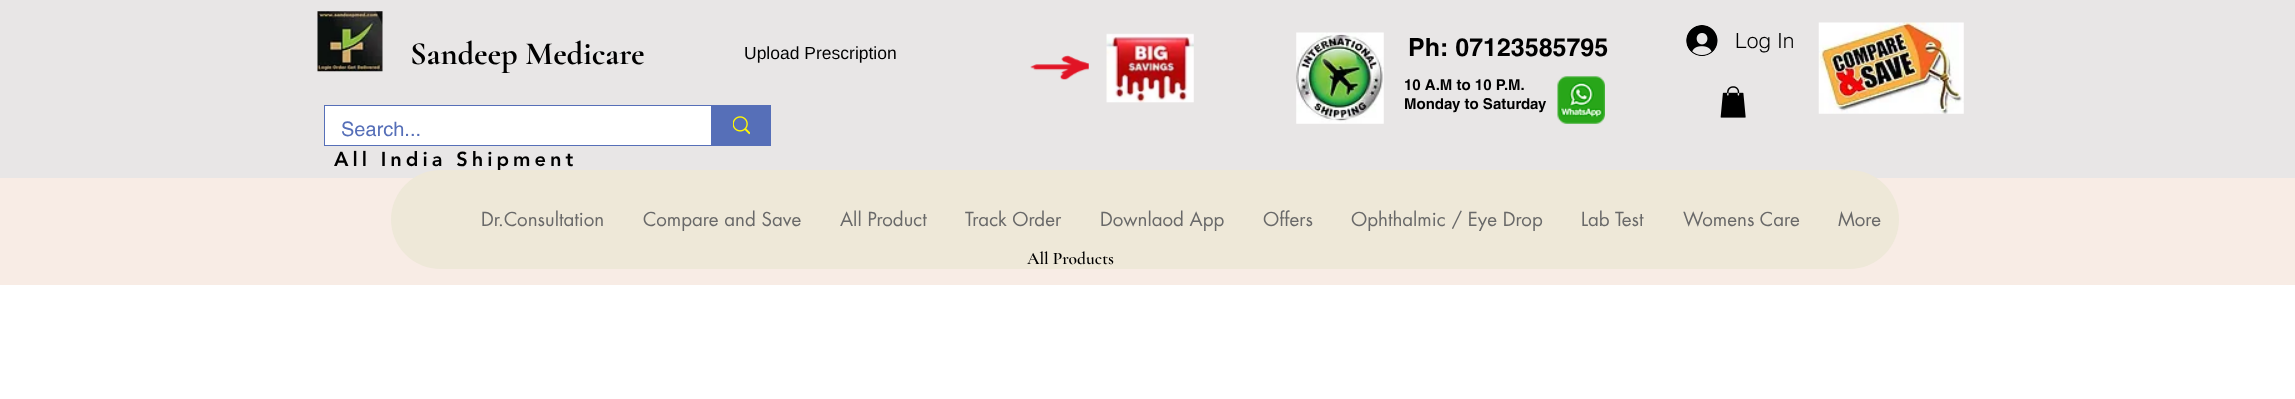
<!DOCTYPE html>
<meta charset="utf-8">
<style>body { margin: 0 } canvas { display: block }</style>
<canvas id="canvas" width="2295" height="399"></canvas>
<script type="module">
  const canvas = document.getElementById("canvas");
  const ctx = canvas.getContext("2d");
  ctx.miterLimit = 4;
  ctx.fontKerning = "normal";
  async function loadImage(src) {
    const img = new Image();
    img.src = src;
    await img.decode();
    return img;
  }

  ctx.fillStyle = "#ffffff";
  ctx.fillRect(0, 0, 2295, 399);
  ctx.fillStyle = "#e8e6e6";
  ctx.fillRect(0, 0, 2295, 178);
  ctx.drawImage(await loadImage("img1.png"), 317, 11, 66, 61);
  ctx.font = "bold 32.5px Cormorant Garamond";
  ctx.fillStyle = "#000000";
  ctx.fillText("Sandeep Medicare", 410, 64);
  ctx.font = "17.5px Liberation Sans";
  ctx.fillText("Upload Prescription", 744, 59);
  ctx.drawImage(await loadImage("img2.png"), 1030, 55, 59, 25);
  ctx.drawImage(await loadImage("img3.png"), 1106, 33, 88, 70);
  ctx.drawImage(await loadImage("img4.png"), 1296, 32, 88, 92);
  ctx.font = "bold 25px helvetica";
  ctx.fillText("Ph: 07123585795", 1408, 56);
  ctx.drawImage(await loadImage("img5.png"), 1686, 25, 32, 31);
  ctx.font = "300 21px helvetica";
  ctx.fillText("Log In", 1735, 48);
  ctx.drawImage(await loadImage("img6.png"), 1818, 22, 146, 92);
  ctx.font = "bold 15px helvetica";
  ctx.fillText("10 A.M to 10 P.M.", 1404, 90);
  ctx.fillText("Monday to Saturday", 1404, 109);
  ctx.drawImage(await loadImage("img7.png"), 1557, 76, 48, 48);
  ctx.drawImage(await loadImage("img8.png"), 1720, 86, 26, 32);
  ctx.strokeStyle = "#566fb8";
  ctx.strokeRect(324.5, 105.5, 446, 40);
  ctx.fillStyle = "#ffffff";
  ctx.fillRect(325, 106, 386, 39);
  ctx.font = "20px helvetica";
  ctx.fillStyle = "#566fb8";
  ctx.fillText("Search...", 341, 136);
  ctx.fillRect(711, 106, 59, 39);
  ctx.drawImage(await loadImage("img9.png"), 733, 116, 17, 19);
  ctx.letterSpacing = "4px";
  ctx.font = "900 20px 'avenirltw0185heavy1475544'";
  ctx.fillStyle = "#000000";
  ctx.fillText("All India Shipment", 334, 166);
  ctx.fillStyle = "#f8ece5";
  ctx.fillRect(0, 178, 2295, 107);
  ctx.fillStyle = "#eee8d8";
  ctx.beginPath();
  ctx.roundRect(391, 170, 1508, 99, 49.5);
  ctx.fill();
  ctx.letterSpacing = "0px";
  ctx.font = "18.75px futura";
  ctx.fillStyle = "#696969";
  ctx.fillText("Dr.Consultation", 481, 226);
  ctx.fillText("Compare and Save", 643, 226);
  ctx.fillText("All Product", 840, 226);
  ctx.fillText("Track Order", 965, 226);
  ctx.fillText("Downlaod App", 1100, 226);
  ctx.fillText("Offers", 1263, 226);
  ctx.fillText("Ophthalmic / Eye Drop", 1351, 226);
  ctx.fillText("Lab Test", 1581, 226);
  ctx.fillText("Womens Care", 1683, 226);
  ctx.fillText("More", 1838, 226);
  ctx.font = "600 17.5px Cormorant Garamond";
  ctx.fillStyle = "#000000";
  ctx.fillText("All Products", 1027, 264);
</script>
